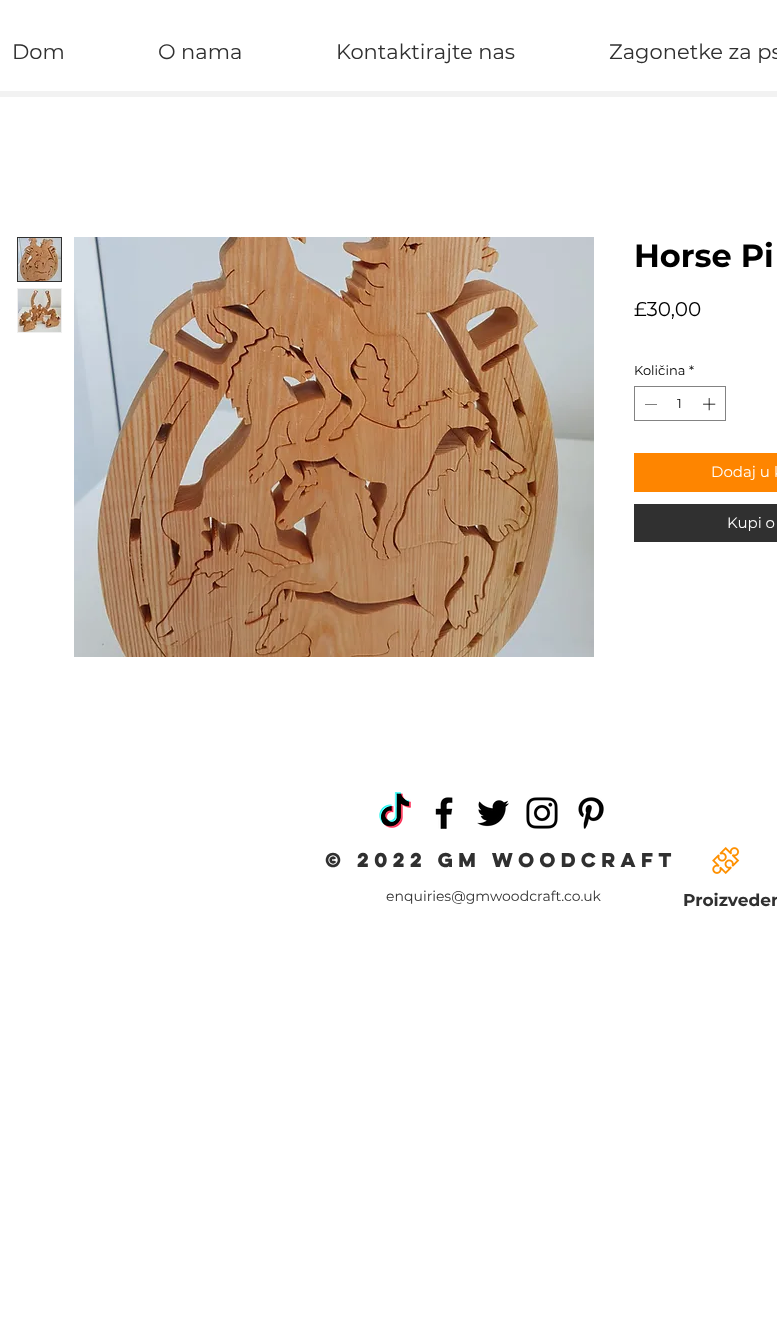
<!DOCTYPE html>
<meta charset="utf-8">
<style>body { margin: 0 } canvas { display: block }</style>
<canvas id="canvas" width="777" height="1333"></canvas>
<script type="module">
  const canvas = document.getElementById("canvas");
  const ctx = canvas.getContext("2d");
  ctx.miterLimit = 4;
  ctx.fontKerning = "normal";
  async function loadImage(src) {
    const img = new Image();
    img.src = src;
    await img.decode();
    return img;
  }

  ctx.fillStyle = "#ffffff";
  ctx.fillRect(0, 0, 777, 1333);
  ctx.font = "21px Montserrat";
  ctx.fillStyle = "#303030";
  ctx.fillText("Dom", 12, 59);
  ctx.fillText("O nama", 158, 59);
  ctx.fillText("Kontaktirajte nas", 336, 59);
  ctx.fillText("Zagonetke za ps", 609, 59);
  ctx.fillStyle = "#f2f2f2";
  ctx.fillRect(0, 91, 777, 6);
  ctx.strokeStyle = "#303030";
  ctx.strokeRect(17.5, 237.5, 44, 44);
  ctx.drawImage(await loadImage("img1.png"), 18, 238, 43, 43);
  ctx.fillStyle = "#efefef";
  ctx.fillRect(17, 288, 45, 45);
  ctx.drawImage(await loadImage("img2.png"), 18, 289, 43, 43);
  ctx.drawImage(await loadImage("img3.png"), 74, 237, 520, 420);
  ctx.font = "bold 32px Montserrat";
  ctx.fillStyle = "#000000";
  ctx.fillText("Horse Pi", 634, 267);
  ctx.font = "20px Montserrat";
  ctx.fillText("£30,00", 634, 316);
  ctx.font = "13px Montserrat";
  ctx.fillText("Količina", 634, 375);
  ctx.fillText("*", 689, 375);
  ctx.strokeStyle = "#838383";
  ctx.strokeRect(634.5, 386.5, 91, 34);
  ctx.beginPath();
  ctx.moveTo(657, 404);
  ctx.lineTo(657, 404.5);
  ctx.lineTo(645, 404.5);
  ctx.lineTo(645, 404);
  ctx.closePath();
  ctx.fill("evenodd");
  ctx.fillText("1", 677, 408);
  ctx.drawImage(await loadImage("img4.png"), 703, 398, 13, 13);
  ctx.fillStyle = "#fe8500";
  ctx.fillRect(634, 453, 143, 39);
  ctx.font = "15px Montserrat";
  ctx.fillStyle = "#ffffff";
  ctx.fillText("Dodaj u k", 711, 477);
  ctx.fillStyle = "#303030";
  ctx.fillRect(634, 504, 143, 38);
  ctx.fillStyle = "#ffffff";
  ctx.fillText("Kupi o", 727, 528);
  ctx.drawImage(await loadImage("img5.png"), 379, 792, 32, 36);
  ctx.drawImage(await loadImage("img6.png"), 435, 797, 18, 32);
  ctx.drawImage(await loadImage("img7.png"), 477, 800, 32, 27);
  ctx.drawImage(await loadImage("img8.png"), 526, 797, 32, 32);
  ctx.drawImage(await loadImage("img9.png"), 578, 797, 26, 32);
  ctx.letterSpacing = "1.4px";
  ctx.font = "bold 18px 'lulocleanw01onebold'";
  ctx.fillStyle = "#303030";
  ctx.fillText("© 2022 GM WoodCraft", 325, 867);
  ctx.drawImage(await loadImage("img10.png"), 712, 847, 28, 27);
  ctx.letterSpacing = "0px";
  ctx.font = "14px Montserrat";
  ctx.fillText("enquiries@gmwoodcraft.co.uk", 386, 901);
  ctx.font = "bold 17px Montserrat";
  ctx.fillText("Proizveden", 683, 906);
</script>
